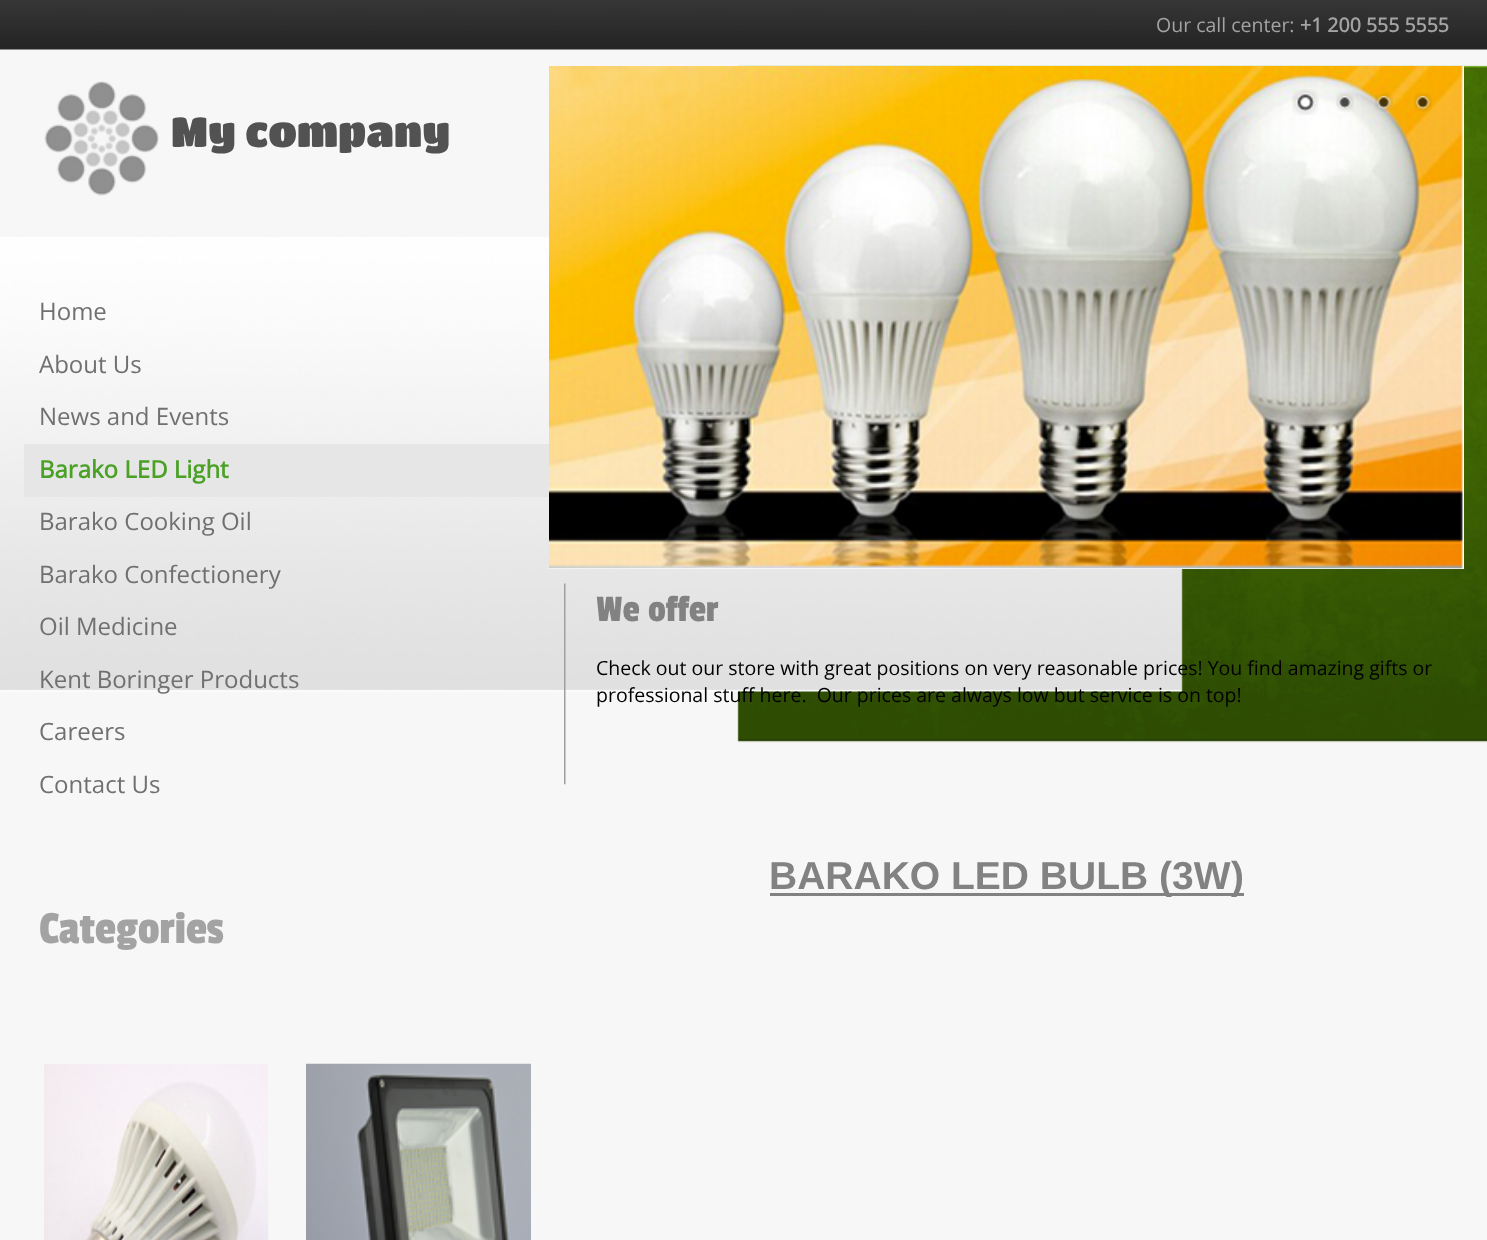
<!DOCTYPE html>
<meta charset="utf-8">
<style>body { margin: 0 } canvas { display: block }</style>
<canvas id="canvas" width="1487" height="1240"></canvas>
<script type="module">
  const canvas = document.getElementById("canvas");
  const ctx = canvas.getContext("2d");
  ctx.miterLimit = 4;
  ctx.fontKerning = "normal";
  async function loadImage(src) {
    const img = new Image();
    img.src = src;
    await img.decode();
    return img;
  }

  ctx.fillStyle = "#f7f7f7";
  ctx.fillRect(0, 0, 1487, 1240);
  ctx.drawImage(await loadImage("img1.png"), 0, 0, 1487, 50);
  ctx.font = "19.5px Open Sans";
  ctx.fillStyle = "#a3a3a3";
  ctx.fillText("Our call center:", 1156, 32);
  ctx.font = "bold 19.5px Open Sans";
  ctx.fillText("+1 200 555 5555", 1300, 32);
  ctx.drawImage(await loadImage("img2.png"), 0, 65, 1487, 678);
  ctx.drawImage(await loadImage("img3.png"), 44, 81, 115, 115);
  ctx.font = "42px Titan One";
  ctx.fillStyle = "#525252";
  ctx.fillText("My company", 171, 147);
  ctx.font = "24px Open Sans";
  ctx.fillStyle = "#707070";
  ctx.fillText("Home", 39, 320);
  ctx.fillText("About Us", 39, 373);
  ctx.fillText("News and Events", 39, 425);
  ctx.fillStyle = "#e6e6e6";
  ctx.fillRect(24, 444, 525, 53);
  ctx.font = "bold 24px Open Sans";
  ctx.fillStyle = "#4aa126";
  ctx.fillText("Barako LED Light", 39, 478);
  ctx.font = "24px Open Sans";
  ctx.fillStyle = "#707070";
  ctx.fillText("Barako Cooking Oil", 39, 530);
  ctx.fillText("Barako Confectionery", 39, 583);
  ctx.fillText("Oil Medicine", 39, 635);
  ctx.fillText("Kent Boringer Products", 39, 688);
  ctx.fillText("Careers", 39, 740);
  ctx.fillText("Contact Us", 39, 793);
  ctx.font = "48px Passion One";
  ctx.fillStyle = "#a3a3a3";
  ctx.fillText("Categories", 39, 943);
  ctx.drawImage(await loadImage("img4.png"), 44, 1064, 225, 176);
  ctx.drawImage(await loadImage("img5.png"), 306, 1063, 225, 177);
  ctx.fillStyle = "#ffffff";
  ctx.fillRect(549, 66, 915, 503);
  ctx.drawImage(await loadImage("img6.png"), 549, 66, 914, 503);
  ctx.drawImage(await loadImage("img7.png"), 1292, 89, 27, 26);
  ctx.drawImage(await loadImage("img8.png"), 1336, 93, 18, 19);
  ctx.drawImage(await loadImage("img9.png"), 1375, 93, 18, 19);
  ctx.drawImage(await loadImage("img10.png"), 1414, 93, 18, 19);
  ctx.drawImage(await loadImage("img11.png"), 564, 583, 2, 202);
  ctx.font = "39px Passion One";
  ctx.fillStyle = "#828282";
  ctx.fillText("We offer", 596, 621);
  ctx.font = "19.5px Open Sans";
  ctx.fillStyle = "#000000";
  ctx.fillText("Check out our store with great positions on very reasonable prices! You find amazing gifts or", 596, 675);
  ctx.fillText("professional stuff here.  Our prices are always low but service is on top!", 596, 702);
  ctx.fillStyle = "#828282";
  ctx.fillRect(770, 893, 460, 3);
  ctx.font = "bold 39px Liberation Sans";
  ctx.fillText("BARAKO LED BULB (3W", 769, 889);
  ctx.fillRect(1230, 893, 14, 3);
  ctx.fillText(")", 1231, 889);
</script>
